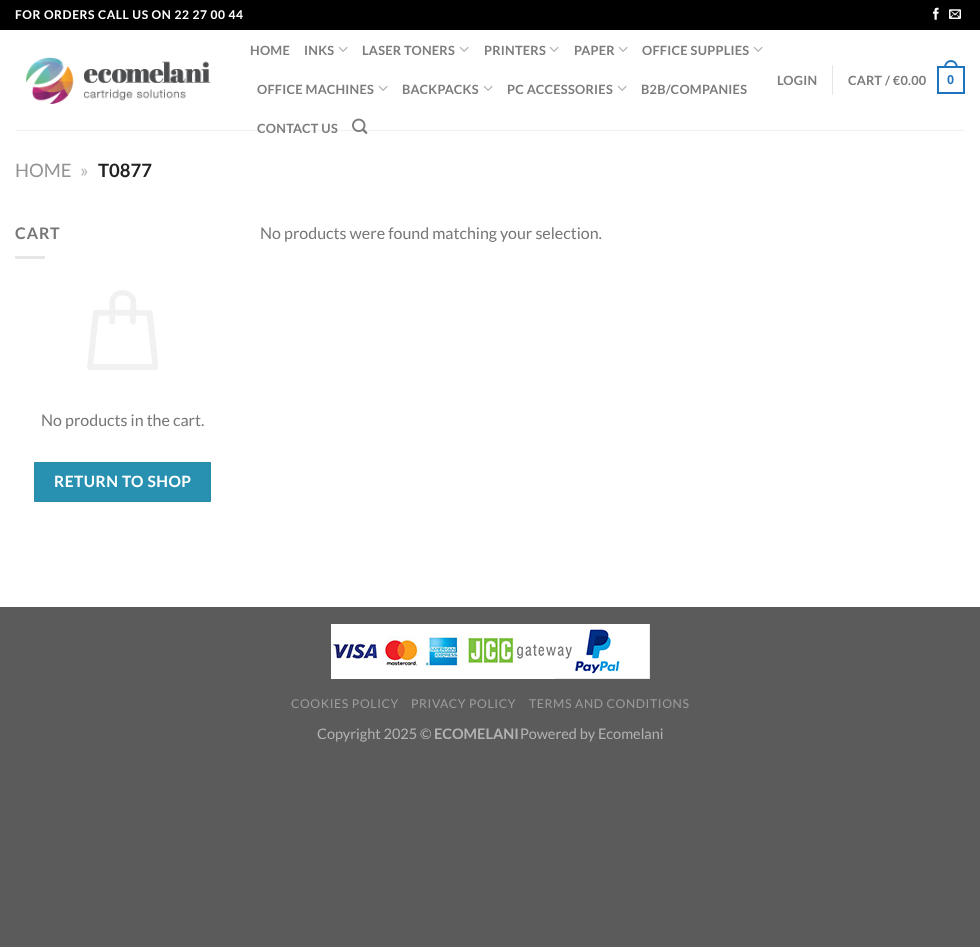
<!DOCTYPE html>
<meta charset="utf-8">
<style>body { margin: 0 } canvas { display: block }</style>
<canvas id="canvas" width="980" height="947"></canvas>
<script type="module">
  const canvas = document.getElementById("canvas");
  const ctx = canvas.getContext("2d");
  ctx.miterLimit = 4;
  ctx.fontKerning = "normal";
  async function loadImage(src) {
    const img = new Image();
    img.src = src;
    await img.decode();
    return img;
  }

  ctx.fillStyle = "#5b5b5b";
  ctx.fillRect(0, 0, 980, 947);
  ctx.fillStyle = "#ffffff";
  ctx.fillRect(0, 30, 980, 577);
  ctx.fillStyle = "#000000";
  ctx.fillRect(0, 0, 980, 30);
  ctx.letterSpacing = "0.6px";
  ctx.font = "bold 12px Lato";
  ctx.fillStyle = "#ffffff";
  ctx.fillText("FOR ORDERS CALL US ON 22 27 00 44", 15, 19);
  ctx.drawImage(await loadImage("img1.png"), 933, 7, 6, 13);
  ctx.drawImage(await loadImage("img2.png"), 949, 9, 12, 10);
  ctx.drawImage(await loadImage("img3.png"), 26, 57, 185, 47);
  ctx.letterSpacing = "0.25px";
  ctx.font = "bold 12.75px Lato";
  ctx.fillStyle = "#7d7d7d";
  ctx.fillText("HOME", 250, 55);
  ctx.fillText("INKS", 304, 55);
  ctx.drawImage(await loadImage("img4.png"), 338, 46, 10, 6);
  ctx.fillText("LASER TONERS", 362, 55);
  ctx.drawImage(await loadImage("img4.png"), 459, 46, 10, 6);
  ctx.fillText("PRINTERS", 484, 55);
  ctx.drawImage(await loadImage("img4.png"), 549, 46, 10, 6);
  ctx.fillText("PAPER", 574, 55);
  ctx.drawImage(await loadImage("img4.png"), 618, 46, 10, 6);
  ctx.fillText("OFFICE SUPPLIES", 642, 55);
  ctx.drawImage(await loadImage("img4.png"), 753, 46, 10, 6);
  ctx.fillText("OFFICE MACHINES", 257, 94);
  ctx.drawImage(await loadImage("img4.png"), 378, 85, 10, 6);
  ctx.fillText("BACKPACKS", 402, 94);
  ctx.drawImage(await loadImage("img4.png"), 483, 85, 10, 6);
  ctx.fillText("PC ACCESSORIES", 507, 94);
  ctx.drawImage(await loadImage("img4.png"), 617, 85, 10, 6);
  ctx.fillText("B2B/COMPANIES", 641, 94);
  ctx.fillText("CONTACT US", 257, 133);
  ctx.drawImage(await loadImage("img5.png"), 352, 118, 16, 16);
  ctx.fillText("LOGIN", 777, 85);
  ctx.fillStyle = "#e6e6e6";
  ctx.fillRect(832, 65, 1, 30);
  ctx.fillStyle = "#7d7d7d";
  ctx.fillText("CART / €0.00", 848, 85);
  ctx.strokeStyle = "#1e73be";
  ctx.lineWidth = 2;
  ctx.strokeRect(938, 67, 26, 26);
  ctx.fillStyle = "#1e73be";
  ctx.beginPath();
  ctx.moveTo(951, 60);
  ctx.bezierCurveTo(955.5, 60, 958, 64, 958, 68);
  ctx.lineTo(944, 68);
  ctx.bezierCurveTo(944, 64, 946.5, 60, 951, 60);
  ctx.closePath();
  ctx.moveTo(951, 62);
  ctx.bezierCurveTo(954.5, 62, 956, 65, 956, 68);
  ctx.lineTo(946, 68);
  ctx.bezierCurveTo(946, 65, 947.5, 62, 951, 62);
  ctx.closePath();
  ctx.fill("evenodd");
  ctx.font = "bold 12.75px Liberation Sans";
  ctx.fillText("0", 947, 84);
  ctx.fillStyle = "rgba(119, 119, 119, 0.1)";
  ctx.fillRect(15, 130, 950, 1);
  ctx.letterSpacing = "0px";
  ctx.font = "18.5px Lato";
  ctx.fillStyle = "#949494";
  ctx.fillText("HOME", 15, 177);
  ctx.fillStyle = "#b2b2b2";
  ctx.fillText("»", 80, 177);
  ctx.font = "bold 18.5px Lato";
  ctx.fillStyle = "#222222";
  ctx.fillText("T0877", 98, 177);
  ctx.letterSpacing = "1px";
  ctx.font = "bold 16px Lato";
  ctx.fillStyle = "#777777";
  ctx.fillText("CART", 15, 239);
  ctx.fillStyle = "#e6e6e6";
  ctx.fillRect(15, 256, 30, 3);
  ctx.drawImage(await loadImage("img6.png"), 87, 290, 71, 80);
  ctx.letterSpacing = "0px";
  ctx.font = "16px Lato";
  ctx.fillStyle = "#777777";
  ctx.fillText("No products in the cart.", 41, 426);
  ctx.fillStyle = "#2891b2";
  ctx.beginPath();
  ctx.rect(34.5, 462.5, 176, 39);
  ctx.fill();
  ctx.strokeStyle = "#268aa9";
  ctx.lineWidth = 1;
  ctx.stroke();
  ctx.letterSpacing = "0.5px";
  ctx.font = "bold 15.5px Lato";
  ctx.fillStyle = "#ffffff";
  ctx.fillText("RETURN TO SHOP", 54, 487);
  ctx.letterSpacing = "0px";
  ctx.font = "16px Lato";
  ctx.fillStyle = "#777777";
  ctx.fillText("No products were found matching your selection.", 260, 239);
  ctx.drawImage(await loadImage("img7.png"), 331, 624, 319, 55);
  ctx.letterSpacing = "0.6px";
  ctx.font = "12.25px Lato";
  ctx.fillStyle = "#9d9d9d";
  ctx.fillText("COOKIES POLICY", 291, 708);
  ctx.fillText("PRIVACY POLICY", 411, 708);
  ctx.fillText("TERMS AND CONDITIONS", 529, 708);
  ctx.letterSpacing = "0px";
  ctx.font = "14.5px Lato";
  ctx.fillStyle = "#b2b2b2";
  ctx.fillText("Copyright 2025 ©", 317, 739);
  ctx.font = "bold 14.5px Lato";
  ctx.fillText("ECOMELANI", 434, 739);
  ctx.font = "14.5px Lato";
  ctx.fillText("Powered by Ecomelani", 520, 739);
</script>
